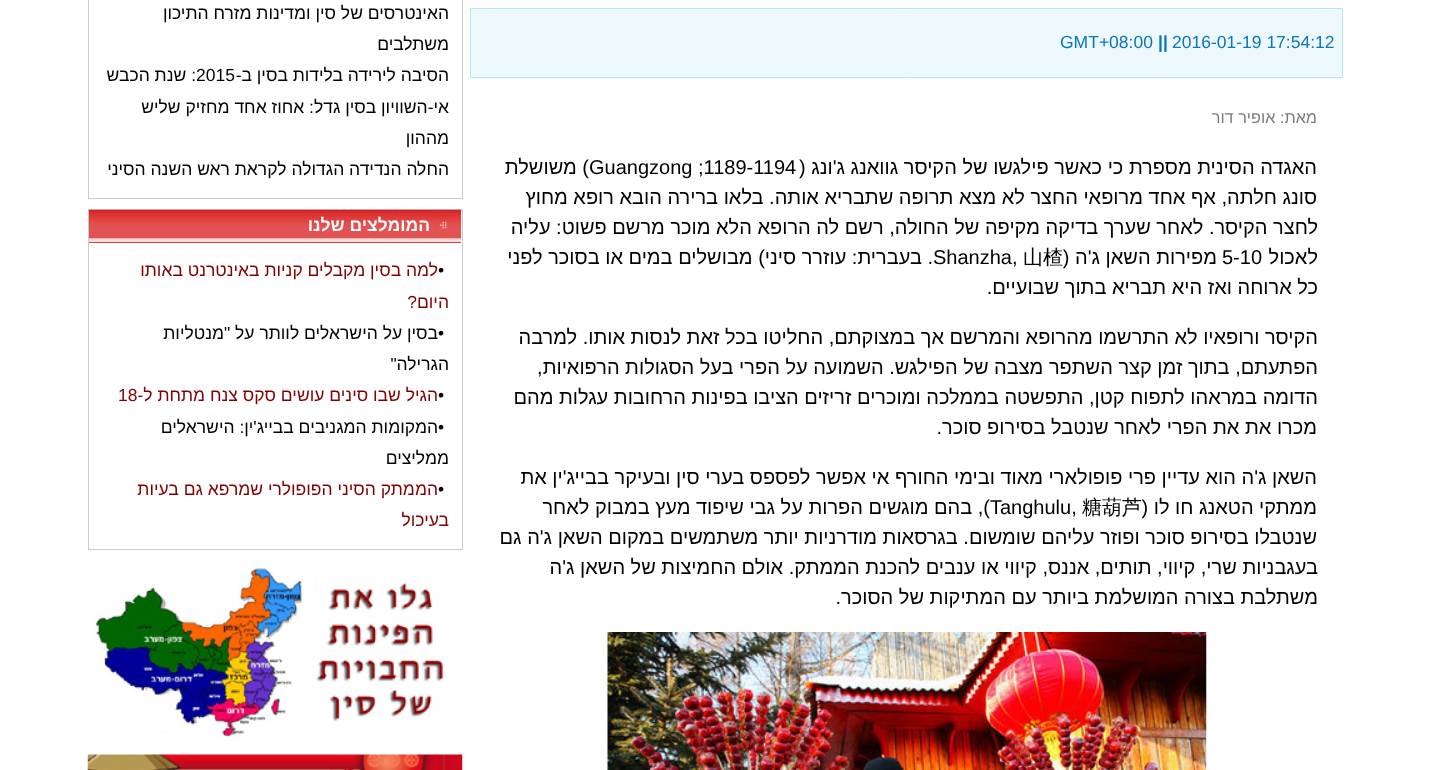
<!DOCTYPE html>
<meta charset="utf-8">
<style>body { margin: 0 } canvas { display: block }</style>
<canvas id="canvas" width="1429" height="770"></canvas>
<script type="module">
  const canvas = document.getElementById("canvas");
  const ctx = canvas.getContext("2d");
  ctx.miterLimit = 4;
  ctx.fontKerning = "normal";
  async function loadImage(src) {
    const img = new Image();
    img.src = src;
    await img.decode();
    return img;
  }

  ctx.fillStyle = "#ffffff";
  ctx.fillRect(0, 0, 1429, 770);
  ctx.fillStyle = "#ecf8fc";
  ctx.beginPath();
  ctx.rect(470.5, 8.5, 872, 69);
  ctx.fill();
  ctx.strokeStyle = "#b1e6f3";
  ctx.stroke();
  ctx.font = "17.5px Liberation Sans";
  ctx.fillStyle = "#0b75bf";
  ctx.fillText("2016-01-19 17:54:12", 1172, 48);
  ctx.font = "bold 17.5px Liberation Sans";
  ctx.fillText("||", 1158, 48);
  ctx.font = "17.5px Liberation Sans";
  ctx.fillText("GMT+08:00", 1060, 48);
  ctx.direction = "rtl";
  ctx.font = "16.25px Liberation Sans";
  ctx.fillStyle = "#7b7d7b";
  ctx.fillText("מאת: אופיר דור", 1317, 123);
  ctx.font = "20px Liberation Sans";
  ctx.fillStyle = "#000000";
  ctx.fillText("האגדה הסינית מספרת כי כאשר פילגשו של הקיסר גוואנג ג'ונג (", 1317, 174);
  ctx.direction = "ltr";
  ctx.fillText("Guangzong ;1189-1194", 589, 174);
  ctx.direction = "rtl";
  ctx.fillText(") משושלת", 589, 174);
  ctx.fillText("סונג חלתה, אף אחד מרופאי החצר לא מצא תרופה שתבריא אותה. בלאו ברירה הובא רופא מחוץ", 1317, 204);
  ctx.fillText("לחצר הקיסר. לאחר שערך בדיקה מקיפה של החולה, רשם לה הרופא הלא מוכר מרשם פשוט: עליה", 1318, 234);
  ctx.fillText("לאכול", 1318, 264);
  ctx.direction = "ltr";
  ctx.fillText("5-10", 1222, 264);
  ctx.font = "500 20px WenQuanYi Zen Hei";
  ctx.fillText("山楂", 1023, 264);
  ctx.direction = "rtl";
  ctx.font = "20px Liberation Sans";
  ctx.fillText("מפירות השאן ג'ה (", 1217, 264);
  ctx.direction = "ltr";
  ctx.fillText("Shanzha,", 933, 264);
  ctx.direction = "rtl";
  ctx.fillText(". בעברית: עוזרר סיני) מבושלים במים או בסוכר לפני", 933, 264);
  ctx.fillText("כל ארוחה ואז היא תבריא בתוך שבועיים.", 1318, 294);
  ctx.fillText("הקיסר ורופאיו לא התרשמו מהרופא והמרשם אך במצוקתם, החליטו בכל זאת לנסות אותו. למרבה", 1318, 344);
  ctx.fillText("הפתעתם, בתוך זמן קצר השתפר מצבה של הפילגש. השמועה על הפרי בעל הסגולות הרפואיות,", 1318, 374);
  ctx.fillText("הדומה במראהו לתפוח קטן, התפשטה בממלכה ומוכרים זריזים הציבו בפינות הרחובות עגלות מהם", 1318, 404);
  ctx.fillText("מכרו את את הפרי לאחר שנטבל בסירופ סוכר.", 1317, 434);
  ctx.fillText("השאן ג'ה הוא עדיין פרי פופולארי מאוד ובימי החורף אי אפשר לפספס בערי סין ובעיקר בבייג'ין את", 1317, 484);
  ctx.fillText("ממתקי הטאנג חו לו (", 1317, 514);
  ctx.direction = "ltr";
  ctx.font = "500 20px WenQuanYi Zen Hei";
  ctx.fillText("糖葫芦", 1082, 514);
  ctx.font = "20px Liberation Sans";
  ctx.fillText("Tanghulu,", 990, 514);
  ctx.direction = "rtl";
  ctx.fillText("), בהם מוגשים הפרות על גבי שיפוד מעץ במבוק לאחר", 990, 514);
  ctx.fillText("שנטבלו בסירופ סוכר ופוזר עליהם שומשום. בגרסאות מודרניות יותר משתמשים במקום השאן ג'ה גם", 1317, 544);
  ctx.fillText("בעגבניות שרי, קיווי, תותים, אננס, קיווי או ענבים להכנת הממתק. אולם החמיצות של השאן ג'ה", 1318, 574);
  ctx.fillText("משתלבת בצורה המושלמת ביותר עם המתיקות של הסוכר.", 1318, 604);
  ctx.drawImage(await loadImage("img1.png"), 607, 632, 600, 138);
  ctx.strokeStyle = "#cccccc";
  ctx.strokeRect(88.5, -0.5, 374, 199);
  ctx.font = "17.5px Liberation Sans";
  ctx.fillText("האינטרסים של סין ומדינות מזרח התיכון", 449, 19);
  ctx.fillText("משתלבים", 449, 50);
  ctx.fillText("הסיבה לירידה בלידות בסין ב-", 449, 81);
  ctx.direction = "ltr";
  ctx.fillText("2015", 196, 81);
  ctx.direction = "rtl";
  ctx.fillText(": שנת הכבש", 196, 81);
  ctx.fillText("אי-השוויון בסין גדל: אחוז אחד מחזיק שליש", 449, 113);
  ctx.fillText("מההון", 449, 144);
  ctx.fillText("החלה הנדידה הגדולה לקראת ראש השנה הסיני", 449, 175);
  ctx.strokeRect(88.5, 209.5, 374, 340);
  ctx.fillStyle = "#df403d";
  ctx.fillRect(89, 242, 372, 1);
  ctx.drawImage(await loadImage("img2.png"), 88, 209, 374, 33);
  ctx.font = "bold 17.5px Liberation Sans";
  ctx.fillStyle = "#ffffff";
  ctx.fillText("המומלצים שלנו", 430, 231);
  ctx.direction = "ltr";
  ctx.font = "17.5px Liberation Sans";
  ctx.fillStyle = "#000000";
  ctx.fillText("•", 438, 276);
  ctx.direction = "rtl";
  ctx.fillStyle = "#840000";
  ctx.fillText("למה בסין מקבלים קניות באינטרנט באותו", 438, 276);
  ctx.fillText("היום?", 449, 308);
  ctx.direction = "ltr";
  ctx.fillStyle = "#000000";
  ctx.fillText("•", 438, 339);
  ctx.direction = "rtl";
  ctx.fillText("בסין על הישראלים לוותר על \"מנטליות", 438, 339);
  ctx.fillText("הגרילה\"", 449, 370);
  ctx.direction = "ltr";
  ctx.fillText("•", 438, 401);
  ctx.direction = "rtl";
  ctx.fillStyle = "#840000";
  ctx.fillText("הגיל שבו סינים עושים סקס צנח מתחת ל-", 438, 401);
  ctx.direction = "ltr";
  ctx.fillText("18", 118, 401);
  ctx.fillStyle = "#000000";
  ctx.fillText("•", 438, 433);
  ctx.direction = "rtl";
  ctx.fillText("המקומות המגניבים בבייג'ין: הישראלים", 438, 433);
  ctx.fillText("ממליצים", 449, 464);
  ctx.direction = "ltr";
  ctx.fillText("•", 438, 495);
  ctx.direction = "rtl";
  ctx.fillStyle = "#840000";
  ctx.fillText("הממתק הסיני הפופולרי שמרפא גם בעיות", 438, 495);
  ctx.fillText("בעיכול", 449, 526);
  ctx.drawImage(await loadImage("img3.png"), 93, 568, 351, 172);
  ctx.drawImage(await loadImage("img4.png"), 87, 754, 376, 16);
</script>
